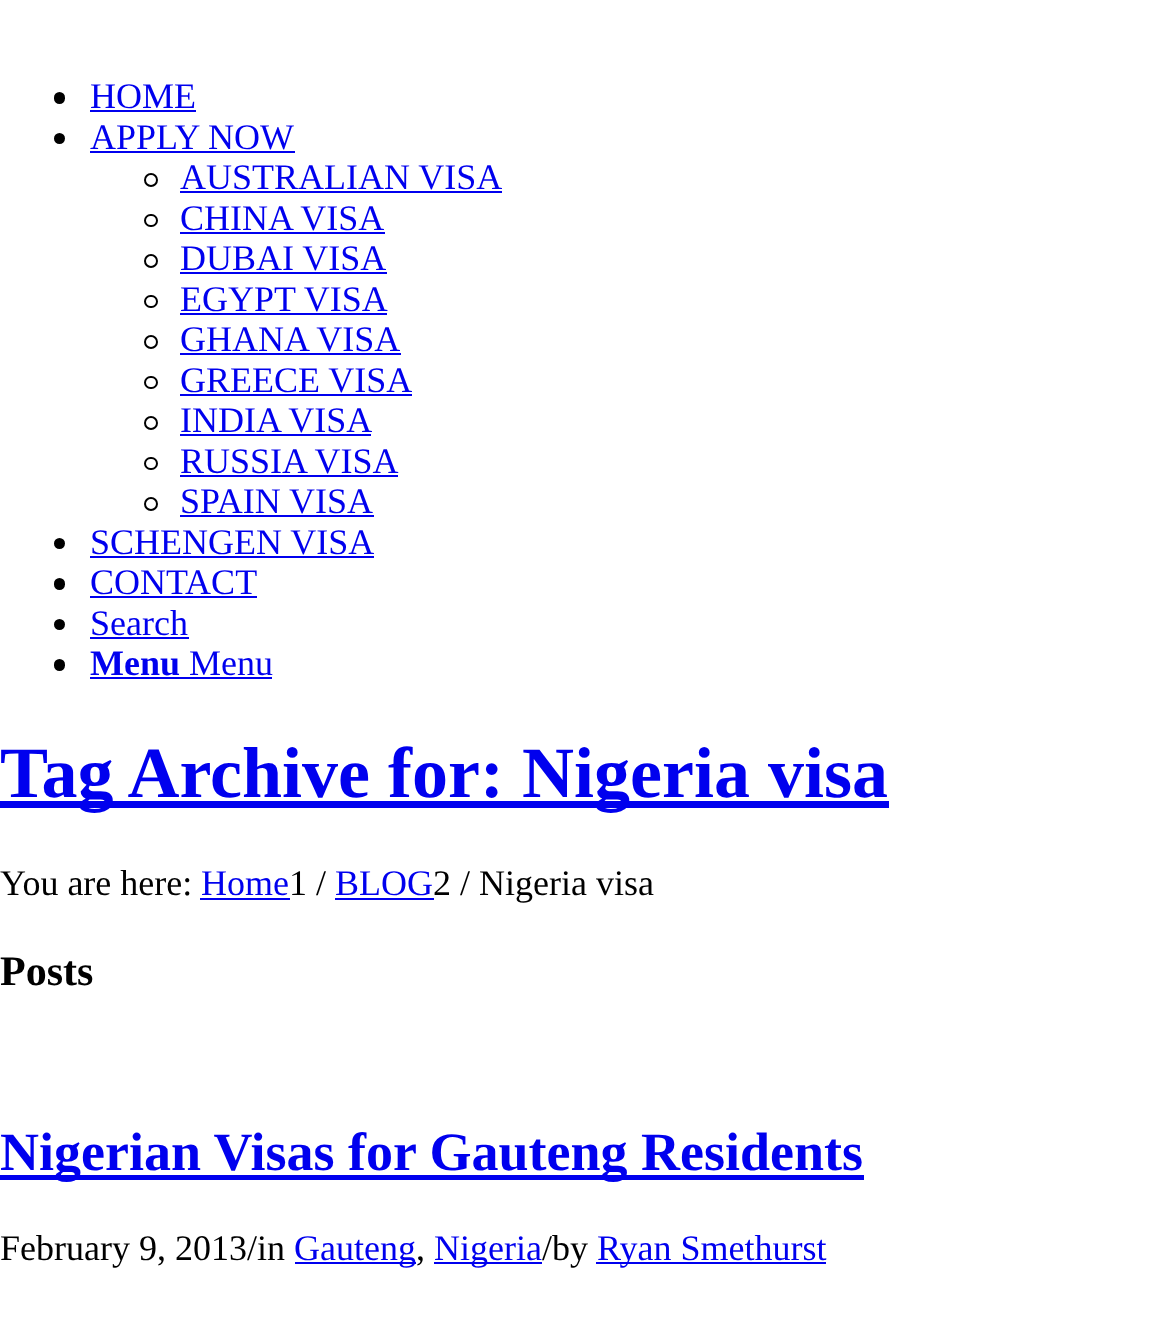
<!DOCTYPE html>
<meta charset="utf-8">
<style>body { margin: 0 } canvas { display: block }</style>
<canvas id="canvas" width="1174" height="1339"></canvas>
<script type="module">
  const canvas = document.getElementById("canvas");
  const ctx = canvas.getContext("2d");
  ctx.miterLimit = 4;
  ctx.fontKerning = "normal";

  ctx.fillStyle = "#ffffff";
  ctx.fillRect(0, 0, 1174, 1339);
  ctx.fillStyle = "#000000";
  ctx.beginPath();
  ctx.roundRect(54, 92, 11, 12, 5.5);
  ctx.fill();
  ctx.font = "36px Liberation Serif";
  ctx.fillStyle = "#0000ee";
  ctx.fillText("HOME", 90, 108);
  ctx.fillRect(90, 110, 106, 2);
  ctx.fillStyle = "#000000";
  ctx.beginPath();
  ctx.arc(59.5, 138.5, 5.5, 0, Math.PI * 2);
  ctx.fill();
  ctx.fillStyle = "#0000ee";
  ctx.fillText("APPLY NOW", 90, 149);
  ctx.fillRect(90, 151, 205, 2);
  ctx.beginPath();
  ctx.arc(151, 180, 6, 0, Math.PI * 2);
  ctx.strokeStyle = "#000000";
  ctx.lineWidth = 2;
  ctx.stroke();
  ctx.fillText("AUSTRALIAN VISA", 180, 189);
  ctx.fillRect(180, 191, 322, 2);
  ctx.beginPath();
  ctx.roundRect(145, 215, 12, 11, 5.5);
  ctx.stroke();
  ctx.fillText("CHINA VISA", 180, 230);
  ctx.fillRect(180, 232, 205, 2);
  ctx.beginPath();
  ctx.arc(151, 261, 6, 0, Math.PI * 2);
  ctx.stroke();
  ctx.fillText("DUBAI VISA", 180, 270);
  ctx.fillRect(180, 272, 207, 2);
  ctx.beginPath();
  ctx.roundRect(145, 296, 12, 11, 5.5);
  ctx.stroke();
  ctx.fillText("EGYPT VISA", 180, 311);
  ctx.fillRect(180, 313, 207, 2);
  ctx.beginPath();
  ctx.arc(151, 342, 6, 0, Math.PI * 2);
  ctx.stroke();
  ctx.fillText("GHANA VISA", 180, 351);
  ctx.fillRect(180, 353, 221, 2);
  ctx.beginPath();
  ctx.roundRect(145, 377, 12, 11, 5.5);
  ctx.stroke();
  ctx.fillText("GREECE VISA", 180, 392);
  ctx.fillRect(180, 394, 232, 2);
  ctx.beginPath();
  ctx.arc(151, 423, 6, 0, Math.PI * 2);
  ctx.stroke();
  ctx.fillText("INDIA VISA", 180, 432);
  ctx.fillRect(180, 434, 191, 2);
  ctx.beginPath();
  ctx.roundRect(145, 458, 12, 11, 5.5);
  ctx.stroke();
  ctx.fillText("RUSSIA VISA", 180, 473);
  ctx.fillRect(180, 475, 218, 2);
  ctx.beginPath();
  ctx.arc(151, 504, 6, 0, Math.PI * 2);
  ctx.stroke();
  ctx.fillText("SPAIN VISA", 180, 513);
  ctx.fillRect(180, 515, 194, 2);
  ctx.fillStyle = "#000000";
  ctx.beginPath();
  ctx.arc(59.5, 543.5, 5.5, 0, Math.PI * 2);
  ctx.fill();
  ctx.fillStyle = "#0000ee";
  ctx.fillText("SCHENGEN VISA", 90, 554);
  ctx.fillRect(90, 556, 284, 2);
  ctx.fillStyle = "#000000";
  ctx.beginPath();
  ctx.roundRect(54, 578, 11, 12, 5.5);
  ctx.fill();
  ctx.fillStyle = "#0000ee";
  ctx.fillText("CONTACT", 90, 594);
  ctx.fillRect(90, 596, 167, 2);
  ctx.fillStyle = "#000000";
  ctx.beginPath();
  ctx.arc(59.5, 624.5, 5.5, 0, Math.PI * 2);
  ctx.fill();
  ctx.fillStyle = "#0000ee";
  ctx.fillText("Search", 90, 635);
  ctx.fillRect(90, 637, 99, 2);
  ctx.fillStyle = "#000000";
  ctx.beginPath();
  ctx.roundRect(54, 659, 11, 12, 5.5);
  ctx.fill();
  ctx.font = "bold 36px Liberation Serif";
  ctx.fillStyle = "#0000ee";
  ctx.fillText("Menu", 90, 675);
  ctx.fillRect(90, 677, 182, 2);
  ctx.font = "36px Liberation Serif";
  ctx.fillText("Menu", 189, 675);
  ctx.fillRect(0, 801, 889, 7);
  ctx.font = "bold 72px Liberation Serif";
  ctx.fillText("Tag Archive for: Nigeria visa", 0, 797);
  ctx.font = "36px Liberation Serif";
  ctx.fillStyle = "#000000";
  ctx.fillText("You are here:", 0, 895);
  ctx.fillStyle = "#0000ee";
  ctx.fillText("Home", 201, 895);
  ctx.fillRect(200, 898, 90, 2);
  ctx.fillStyle = "#000000";
  ctx.fillText("1 /", 289, 895);
  ctx.fillStyle = "#0000ee";
  ctx.fillText("BLOG", 335, 895);
  ctx.fillStyle = "#000000";
  ctx.fillText("2 / Nigeria visa", 433, 895);
  ctx.fillStyle = "#0000ee";
  ctx.fillRect(335, 898, 99, 2);
  ctx.font = "bold 42px Liberation Serif";
  ctx.fillStyle = "#000000";
  ctx.fillText("Posts", 0, 985);
  ctx.fillStyle = "#0000ee";
  ctx.fillRect(0, 1175, 864, 5);
  ctx.font = "bold 54px Liberation Serif";
  ctx.fillText("Nigerian Visas for Gauteng Residents", 0, 1170);
  ctx.font = "36px Liberation Serif";
  ctx.fillStyle = "#000000";
  ctx.fillText("February 9, 2013/in", 0, 1260);
  ctx.fillStyle = "#0000ee";
  ctx.fillRect(295, 1262, 121, 2);
  ctx.fillText("Gauteng", 294, 1260);
  ctx.fillStyle = "#000000";
  ctx.fillText(",", 416, 1260);
  ctx.fillStyle = "#0000ee";
  ctx.fillRect(434, 1262, 108, 2);
  ctx.fillText("Nigeria", 434, 1260);
  ctx.fillStyle = "#000000";
  ctx.fillText("/by", 542, 1260);
  ctx.fillStyle = "#0000ee";
  ctx.fillRect(596, 1262, 230, 2);
  ctx.fillText("Ryan Smethurst", 597, 1260);
</script>
